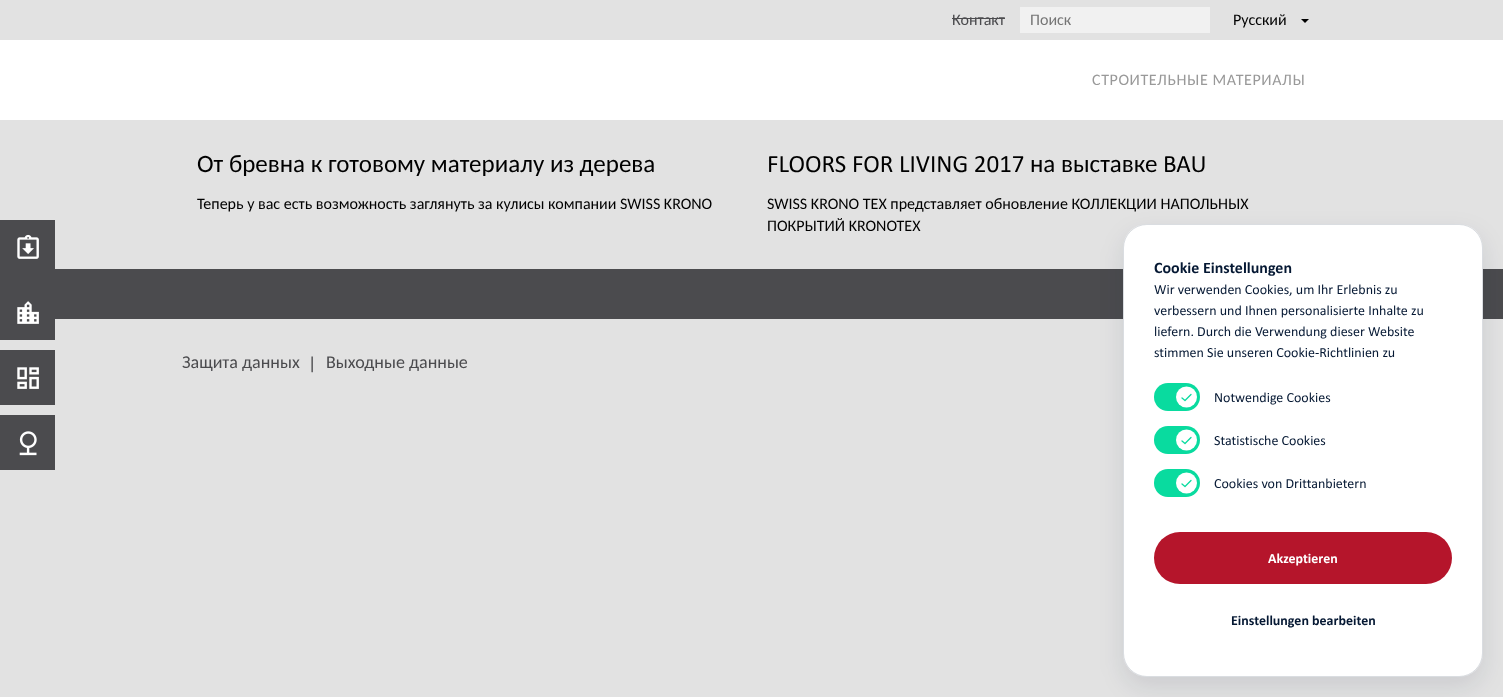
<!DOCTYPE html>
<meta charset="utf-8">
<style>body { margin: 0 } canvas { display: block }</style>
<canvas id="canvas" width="1503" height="697"></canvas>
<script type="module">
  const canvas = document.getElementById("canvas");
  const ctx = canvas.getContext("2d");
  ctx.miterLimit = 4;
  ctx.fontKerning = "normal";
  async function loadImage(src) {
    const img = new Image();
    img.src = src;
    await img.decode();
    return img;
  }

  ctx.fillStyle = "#e2e2e2";
  ctx.fillRect(0, 0, 1503, 697);
  ctx.font = "16px Carlito";
  ctx.fillStyle = "#4b4b4e";
  ctx.fillText("Контакт", 952, 25);
  ctx.fillRect(952, 18, 53, 1);
  ctx.fillStyle = "#f1f1f1";
  ctx.fillRect(1020, 7, 190, 26);
  ctx.fillStyle = "#757575";
  ctx.fillText("Поиск", 1030, 25);
  ctx.fillStyle = "#000000";
  ctx.fillText("Русский", 1233, 25);
  ctx.beginPath();
  ctx.moveTo(1301, 19);
  ctx.lineTo(1309, 19);
  ctx.lineTo(1305, 23);
  ctx.closePath();
  ctx.fill();
  ctx.fillStyle = "#ffffff";
  ctx.fillRect(0, 40, 1503, 80);
  ctx.letterSpacing = "0.6px";
  ctx.fillStyle = "#999999";
  ctx.fillText("СТРОИТЕЛЬНЫЕ МАТЕРИАЛЫ", 1092, 85);
  ctx.fillStyle = "#4b4b4e";
  ctx.fillRect(0, 220, 55, 49);
  ctx.drawImage(await loadImage("img1.png"), 17, 234, 22, 25);
  ctx.fillRect(0, 319, 55, 21);
  ctx.fillRect(0, 269, 1503, 50);
  ctx.drawImage(await loadImage("img2.png"), 17, 301, 22, 23);
  ctx.fillRect(0, 350, 55, 55);
  ctx.drawImage(await loadImage("img3.png"), 17, 367, 22, 22);
  ctx.fillRect(0, 415, 55, 55);
  ctx.drawImage(await loadImage("img4.png"), 19, 431, 18, 25);
  ctx.letterSpacing = "0px";
  ctx.font = "25px Carlito";
  ctx.fillStyle = "#000000";
  ctx.fillText("От бревна к готовому материалу из дерева", 197, 172);
  ctx.font = "16px Carlito";
  ctx.fillText("Теперь у вас есть возможность заглянуть за кулисы компании SWISS KRONO", 197, 209);
  ctx.font = "25px Calibri";
  ctx.fillText("FLOORS FOR LIVING 2017", 767, 172);
  ctx.font = "25px Carlito";
  ctx.fillText("на выставке", 1030, 172);
  ctx.font = "25px Calibri";
  ctx.fillText("BAU", 1163, 172);
  ctx.font = "16px Carlito";
  ctx.fillText("SWISS KRONO TEX представляет обновление КОЛЛЕКЦИИ НАПОЛЬНЫХ", 767, 209);
  ctx.fillText("ПОКРЫТИЙ KRONOTEX", 767, 231);
  ctx.font = "18px Carlito";
  ctx.fillStyle = "#4b4b4e";
  ctx.fillText("Защита данных", 182, 368);
  ctx.font = "18px Calibri";
  ctx.fillText("|", 308, 369);
  ctx.font = "18px Carlito";
  ctx.fillText("Выходные данные", 326, 368);
  ctx.fillStyle = "rgba(5, 24, 51, 0.1)";
  ctx.filter = "blur(12.5px)";
  ctx.beginPath();
  ctx.roundRect(1123, 234, 360, 453, 24);
  ctx.fill();
  ctx.filter = "none";
  ctx.fillStyle = "#ffffff";
  ctx.beginPath();
  ctx.roundRect(1123, 224, 360, 453, 24);
  ctx.fill();
  ctx.beginPath();
  ctx.roundRect(1123.5, 224.5, 359, 452, 23.5);
  ctx.strokeStyle = "rgba(5, 24, 51, 0.15)";
  ctx.stroke();
  ctx.font = "bold 16px Calibri";
  ctx.fillStyle = "#051833";
  ctx.fillText("Cookie Einstellungen", 1154, 273);
  ctx.font = "14px Calibri";
  ctx.fillText("Wir verwenden Cookies, um Ihr Erlebnis zu", 1154, 294);
  ctx.fillText("verbessern und Ihnen personalisierte Inhalte zu", 1154, 315);
  ctx.fillText("liefern. Durch die Verwendung dieser Website", 1154, 336);
  ctx.fillText("stimmen Sie unseren Cookie-Richtlinien zu", 1154, 357);
  ctx.fillStyle = "#09db9f";
  ctx.beginPath();
  ctx.roundRect(1154, 383, 46, 28, 14);
  ctx.fill();
  ctx.fillStyle = "#ffffff";
  ctx.beginPath();
  ctx.arc(1186.5, 397, 10.5, 0, Math.PI * 2);
  ctx.fill();
  ctx.beginPath();
  ctx.moveTo(1182, 398);
  ctx.lineTo(1185, 400.5);
  ctx.lineTo(1191, 394.5);
  ctx.strokeStyle = "#09db9f";
  ctx.lineWidth = 1.3;
  ctx.lineCap = "round";
  ctx.lineJoin = "round";
  ctx.stroke();
  ctx.fillStyle = "#051833";
  ctx.fillText("Notwendige Cookies", 1214, 402);
  ctx.fillStyle = "#09db9f";
  ctx.beginPath();
  ctx.roundRect(1154, 426, 46, 28, 14);
  ctx.fill();
  ctx.fillStyle = "#ffffff";
  ctx.beginPath();
  ctx.arc(1186.5, 440, 10.5, 0, Math.PI * 2);
  ctx.fill();
  ctx.beginPath();
  ctx.moveTo(1182, 441);
  ctx.lineTo(1185, 443.5);
  ctx.lineTo(1191, 437.5);
  ctx.stroke();
  ctx.fillStyle = "#051833";
  ctx.fillText("Statistische Cookies", 1214, 445);
  ctx.fillStyle = "#09db9f";
  ctx.beginPath();
  ctx.roundRect(1154, 469, 46, 28, 14);
  ctx.fill();
  ctx.fillStyle = "#ffffff";
  ctx.beginPath();
  ctx.arc(1186.5, 483, 10.5, 0, Math.PI * 2);
  ctx.fill();
  ctx.beginPath();
  ctx.moveTo(1182, 484);
  ctx.lineTo(1185, 486.5);
  ctx.lineTo(1191, 480.5);
  ctx.stroke();
  ctx.fillStyle = "#051833";
  ctx.fillText("Cookies von Drittanbietern", 1214, 488);
  ctx.fillStyle = "#b5152b";
  ctx.beginPath();
  ctx.roundRect(1154, 532, 298, 52, 26);
  ctx.fill();
  ctx.font = "bold 14px Calibri";
  ctx.fillStyle = "#ffffff";
  ctx.fillText("Akzeptieren", 1268, 563);
  ctx.fillStyle = "#051833";
  ctx.fillText("Einstellungen bearbeiten", 1231, 625);
</script>
